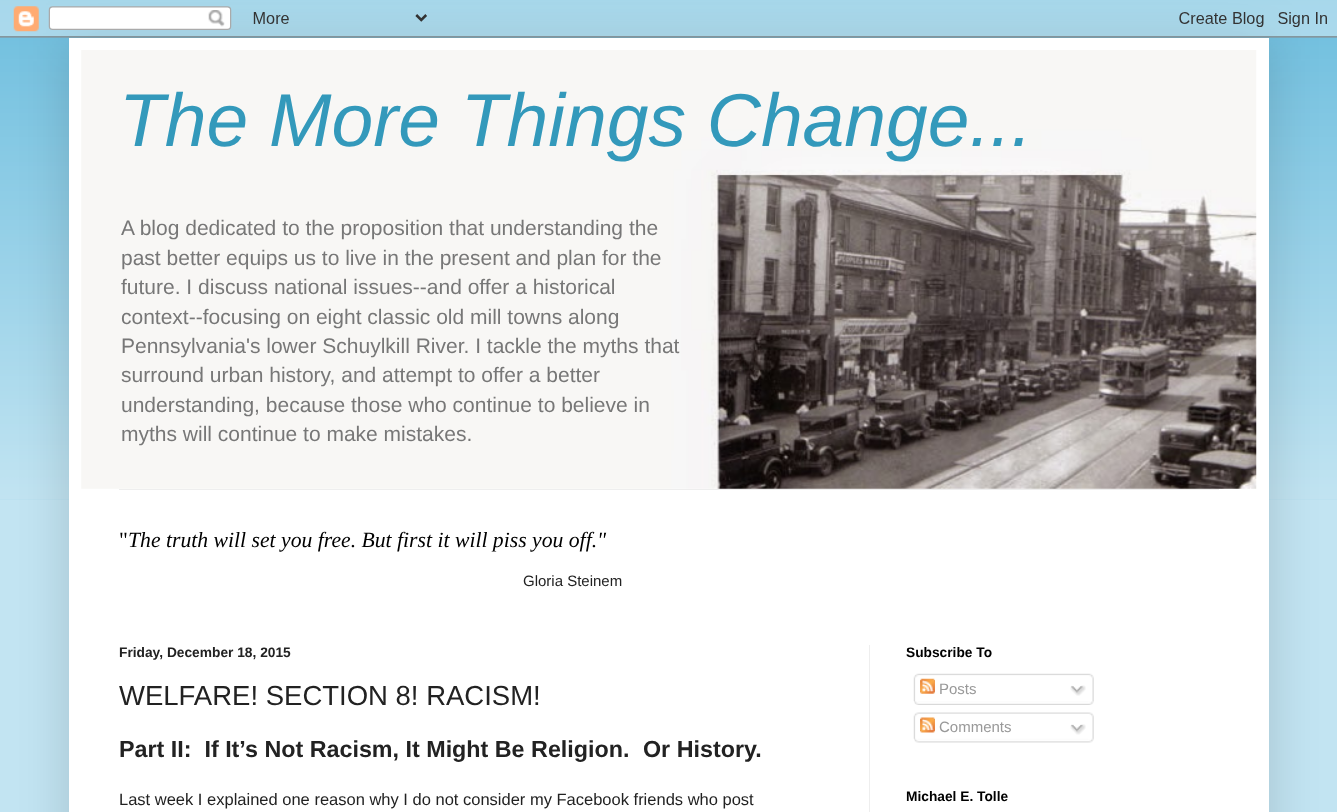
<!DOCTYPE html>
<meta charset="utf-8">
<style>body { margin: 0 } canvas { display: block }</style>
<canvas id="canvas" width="1337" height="812"></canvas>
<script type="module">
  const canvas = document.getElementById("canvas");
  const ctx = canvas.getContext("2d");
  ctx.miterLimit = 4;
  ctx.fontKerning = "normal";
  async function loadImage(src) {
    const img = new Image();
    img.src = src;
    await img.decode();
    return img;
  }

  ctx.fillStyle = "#c2e4f2";
  ctx.fillRect(0, 0, 1337, 812);
  ctx.fillStyle = "#66bbdd";
  ctx.fillRect(0, 0, 1337, 500);
  ctx.drawImage(await loadImage("img1.png"), 0, 0, 1337, 500);
  ctx.fillStyle = "rgba(0, 0, 0, 0.15)";
  ctx.filter = "blur(25px)";
  ctx.beginPath();
  ctx.rect(69, 38, 1200, 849);
  ctx.fill();
  ctx.filter = "none";
  ctx.drawImage(await loadImage("img2.png"), 0, 0, 1337, 38);
  ctx.fillStyle = "#ffffff";
  ctx.fillRect(69, 38, 1200, 774);
  ctx.drawImage(await loadImage("img3.png"), 81, 50, 1176, 439);
  ctx.font = "italic 75px Liberation Sans";
  ctx.fillStyle = "#3399bb";
  ctx.fillText("The More Things Change...", 119, 146);
  ctx.font = "21px Liberation Sans";
  ctx.fillStyle = "#777777";
  ctx.fillText("A blog dedicated to the proposition that understanding the", 121, 235);
  ctx.fillText("past better equips us to live in the present and plan for the", 121, 265);
  ctx.fillText("future. I discuss national issues--and offer a historical", 121, 294);
  ctx.fillText("context--focusing on eight classic old mill towns along", 121, 324);
  ctx.fillText("Pennsylvania's lower Schuylkill River. I tackle the myths that", 121, 353);
  ctx.fillText("surround urban history, and attempt to offer a better", 121, 382);
  ctx.fillText("understanding, because those who continue to believe in", 121, 412);
  ctx.fillText("myths will continue to make mistakes.", 121, 441);
  ctx.fillStyle = "#eeeeee";
  ctx.fillRect(119, 489, 1100, 1);
  ctx.font = "21.7px Liberation Serif";
  ctx.fillStyle = "#000000";
  ctx.fillText("\"", 119, 547);
  ctx.font = "italic 21.7px Liberation Serif";
  ctx.fillText("The truth will set you free. But first it will piss you off.\"", 128, 547);
  ctx.font = "15px Liberation Sans";
  ctx.fillStyle = "#222222";
  ctx.fillText("Gloria Steinem", 523, 586);
  ctx.fillStyle = "#eeeeee";
  ctx.fillRect(869, 645, 1, 167);
  ctx.font = "bold 13.75px Liberation Sans";
  ctx.fillStyle = "#222222";
  ctx.fillText("Friday, December 18, 2015", 119, 657);
  ctx.font = "27.5px Liberation Sans";
  ctx.fillText("WELFARE! SECTION 8! RACISM!", 119, 705);
  ctx.font = "bold 23.3px Liberation Sans";
  ctx.fillText("Part II:  If It’s Not Racism, It Might Be Religion.", 119, 757);
  ctx.fillText("Or History.", 643, 757);
  ctx.font = "16.5px Liberation Sans";
  ctx.fillText("Last week I explained one reason why I do not consider my Facebook friends who post", 119, 805);
  ctx.font = "bold 13.75px Liberation Sans";
  ctx.fillStyle = "#000000";
  ctx.fillText("Subscribe To", 906, 657);
  ctx.drawImage(await loadImage("img4.png"), 913, 673, 181, 29);
  ctx.drawImage(await loadImage("img5.png"), 920, 678, 15, 16);
  ctx.font = "15px Liberation Sans";
  ctx.fillStyle = "#999999";
  ctx.fillText("Posts", 939, 694);
  ctx.drawImage(await loadImage("img6.png"), 1070, 685, 16, 11);
  ctx.drawImage(await loadImage("img7.png"), 914, 701, 180, 4);
  ctx.drawImage(await loadImage("img8.png"), 913, 712, 181, 27);
  ctx.drawImage(await loadImage("img9.png"), 920, 717, 15, 16);
  ctx.fillText("Comments", 939, 732);
  ctx.drawImage(await loadImage("img10.png"), 1070, 724, 16, 11);
  ctx.drawImage(await loadImage("img11.png"), 914, 738, 180, 5);
  ctx.font = "bold 13.75px Liberation Sans";
  ctx.fillStyle = "#000000";
  ctx.fillText("Michael E. Tolle", 906, 801);
</script>
